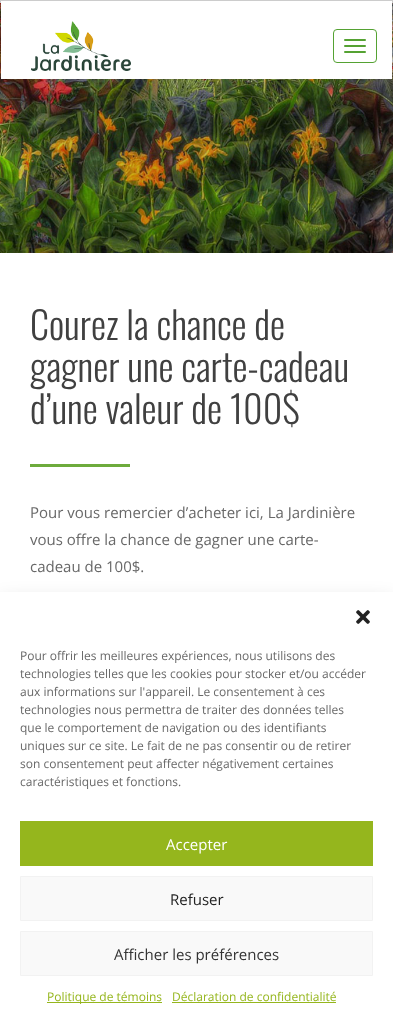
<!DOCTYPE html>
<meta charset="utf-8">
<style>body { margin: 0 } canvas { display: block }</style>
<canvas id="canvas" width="393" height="1021"></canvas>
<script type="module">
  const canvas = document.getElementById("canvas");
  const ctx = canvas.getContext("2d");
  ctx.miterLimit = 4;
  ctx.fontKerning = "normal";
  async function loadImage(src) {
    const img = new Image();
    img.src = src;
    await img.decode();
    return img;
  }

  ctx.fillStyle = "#ffffff";
  ctx.fillRect(0, 0, 393, 1021);
  ctx.fillStyle = "#cccccc";
  ctx.fillRect(0, 0, 393, 3);
  ctx.drawImage(await loadImage("img2.png"), 0, 3, 393, 250);
  ctx.fillStyle = "#ffffff";
  ctx.fillRect(1, 1, 391, 78);
  ctx.drawImage(await loadImage("img1.png"), 31, 21, 100, 50);
  ctx.beginPath();
  ctx.roundRect(333.5, 29.5, 43, 33, 3.5);
  ctx.strokeStyle = "#55a233";
  ctx.stroke();
  ctx.fillStyle = "#55a233";
  ctx.beginPath();
  ctx.roundRect(344, 39, 22, 2, 1);
  ctx.fill();
  ctx.beginPath();
  ctx.roundRect(344, 45, 22, 2, 1);
  ctx.fill();
  ctx.beginPath();
  ctx.roundRect(344, 51, 22, 2, 1);
  ctx.fill();
  ctx.font = "300 38px Oswald";
  ctx.fillStyle = "#404040";
  ctx.fillText("Courez la chance de", 30, 340);
  ctx.fillText("gagner une carte-cadeau", 30, 382);
  ctx.fillText("d’une valeur de 100$", 30, 424);
  ctx.fillStyle = "#6dab3c";
  ctx.fillRect(30, 464, 100, 3);
  ctx.font = "15px Open Sans";
  ctx.fillStyle = "#686868";
  ctx.fillText("Pour vous remercier d’acheter ici, La Jardinière", 30, 518);
  ctx.fillText("vous offre la chance de gagner une carte-", 30, 545);
  ctx.fillText("cadeau de 100$.", 30, 572);
  ctx.fillStyle = "rgba(0, 0, 0, 0.19)";
  ctx.filter = "blur(10px)";
  ctx.beginPath();
  ctx.rect(0, 602, 393, 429);
  ctx.fill();
  ctx.filter = "none";
  ctx.fillStyle = "#ffffff";
  ctx.fillRect(0, 592, 393, 429);
  ctx.drawImage(await loadImage("img3.png"), 356, 610, 14, 14);
  ctx.font = "12px Open Sans";
  ctx.fillStyle = "#686868";
  ctx.fillText("Pour offrir les meilleures expériences, nous utilisons des", 20, 660);
  ctx.fillText("technologies telles que les cookies pour stocker et/ou accéder", 20, 678);
  ctx.fillText("aux informations sur l'appareil. Le consentement à ces", 20, 696);
  ctx.fillText("technologies nous permettra de traiter des données telles", 20, 714);
  ctx.fillText("que le comportement de navigation ou des identifiants", 20, 732);
  ctx.fillText("uniques sur ce site. Le fait de ne pas consentir ou de retirer", 20, 750);
  ctx.fillText("son consentement peut affecter négativement certaines", 20, 768);
  ctx.fillText("caractéristiques et fonctions.", 20, 786);
  ctx.fillStyle = "#95b61d";
  ctx.fillRect(20, 821, 353, 45);
  ctx.font = "15px Open Sans";
  ctx.fillStyle = "#ffffff";
  ctx.fillText("Accepter", 166, 850);
  ctx.fillStyle = "#f9f9f9";
  ctx.beginPath();
  ctx.rect(20.5, 876.5, 352, 44);
  ctx.fill();
  ctx.strokeStyle = "#f2f2f2";
  ctx.stroke();
  ctx.fillStyle = "#222222";
  ctx.fillText("Refuser", 170, 905);
  ctx.fillStyle = "#f9f9f9";
  ctx.beginPath();
  ctx.rect(20.5, 931.5, 352, 44);
  ctx.fill();
  ctx.stroke();
  ctx.fillStyle = "#333333";
  ctx.fillText("Afficher les préférences", 114, 960);
  ctx.fillStyle = "#95b61d";
  ctx.fillRect(47, 1002, 115, 1);
  ctx.font = "12px Open Sans";
  ctx.fillText("Politique de témoins", 47, 1001);
  ctx.fillText("Déclaration de confidentialité", 172, 1001);
  ctx.fillRect(172, 1002, 164, 1);
</script>
